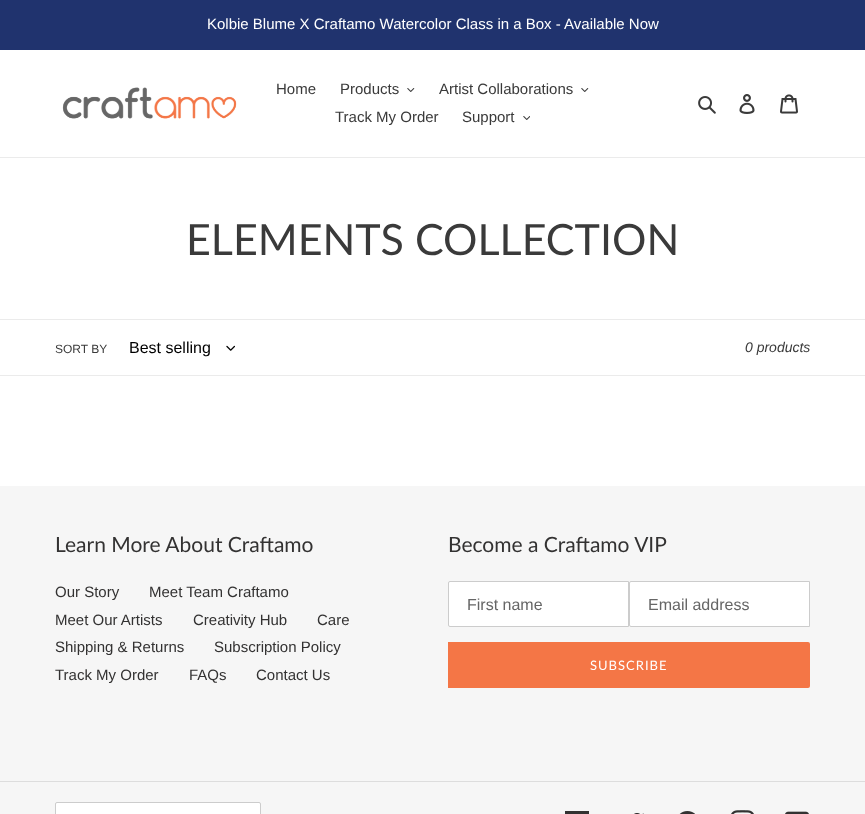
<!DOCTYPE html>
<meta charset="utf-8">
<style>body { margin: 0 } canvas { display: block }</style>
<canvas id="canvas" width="865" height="814"></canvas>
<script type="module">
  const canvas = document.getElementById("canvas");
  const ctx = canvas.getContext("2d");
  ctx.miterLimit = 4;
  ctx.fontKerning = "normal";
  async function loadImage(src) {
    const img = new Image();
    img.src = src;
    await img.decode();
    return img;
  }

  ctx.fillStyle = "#ffffff";
  ctx.fillRect(0, 0, 865, 814);
  ctx.fillStyle = "#20336e";
  ctx.fillRect(0, 0, 865, 50);
  ctx.font = "15px Liberation Sans";
  ctx.fillStyle = "#ffffff";
  ctx.fillText("Kolbie Blume X Craftamo Watercolor Class in a Box - Available Now", 207, 29);
  ctx.fillStyle = "#ebebeb";
  ctx.fillRect(0, 157, 865, 1);
  ctx.drawImage(await loadImage("img1.png"), 62, 87, 175, 32);
  ctx.fillStyle = "#3a3a3a";
  ctx.fillText("Home", 276, 94);
  ctx.fillText("Products", 340, 94);
  ctx.drawImage(await loadImage("img2.png"), 407, 88, 8, 4);
  ctx.fillText("Artist Collaborations", 439, 94);
  ctx.drawImage(await loadImage("img2.png"), 581, 88, 8, 4);
  ctx.fillText("Track My Order", 335, 122);
  ctx.fillText("Support", 462, 122);
  ctx.drawImage(await loadImage("img3.png"), 523, 116, 7, 4);
  ctx.drawImage(await loadImage("img4.png"), 698, 96, 18, 18);
  ctx.drawImage(await loadImage("img5.png"), 739, 94, 16, 20);
  ctx.drawImage(await loadImage("img6.png"), 780, 94, 18, 20);
  ctx.font = "43px Lato";
  ctx.fillText("ELEMENTS COLLECTION", 186, 255);
  ctx.fillStyle = "#ebebeb";
  ctx.fillRect(0, 319, 865, 1);
  ctx.fillRect(0, 375, 865, 1);
  ctx.font = "12px Liberation Sans";
  ctx.fillStyle = "#3a3a3a";
  ctx.fillText("SORT BY", 55, 353);
  ctx.font = "16px Liberation Sans";
  ctx.fillStyle = "#000000";
  ctx.fillText("Best selling", 129, 353);
  ctx.drawImage(await loadImage("img7.png"), 226, 345, 9, 6);
  ctx.font = "italic 14px Liberation Sans";
  ctx.fillStyle = "#3a3a3a";
  ctx.fillText("0 products", 745, 352);
  ctx.fillStyle = "#f6f6f6";
  ctx.fillRect(0, 486, 865, 328);
  ctx.font = "21px Lato";
  ctx.fillStyle = "#333232";
  ctx.fillText("Learn More About Craftamo", 55, 552);
  ctx.font = "15px Liberation Sans";
  ctx.fillText("Our Story", 55, 597);
  ctx.fillText("Meet Team Craftamo", 149, 597);
  ctx.fillText("Meet Our Artists", 55, 625);
  ctx.fillText("Creativity Hub", 193, 625);
  ctx.fillText("Care", 317, 625);
  ctx.fillText("Shipping & Returns", 55, 652);
  ctx.fillText("Subscription Policy", 214, 652);
  ctx.fillText("Track My Order", 55, 680);
  ctx.fillText("FAQs", 189, 680);
  ctx.fillText("Contact Us", 256, 680);
  ctx.font = "21px Lato";
  ctx.fillText("Become a Craftamo VIP", 448, 552);
  ctx.fillStyle = "#ffffff";
  ctx.beginPath();
  ctx.roundRect(448.5, 581.5, 180, 45, [1.5, 0, 0, 1.5]);
  ctx.fill();
  ctx.strokeStyle = "#cccccc";
  ctx.stroke();
  ctx.font = "16px Liberation Sans";
  ctx.fillStyle = "#666666";
  ctx.fillText("First name", 467, 610);
  ctx.fillStyle = "#ffffff";
  ctx.beginPath();
  ctx.roundRect(629.5, 581.5, 180, 45, [1.5, 0, 0, 1.5]);
  ctx.fill();
  ctx.stroke();
  ctx.fillStyle = "#666666";
  ctx.fillText("Email address", 648, 610);
  ctx.fillStyle = "#f47646";
  ctx.beginPath();
  ctx.roundRect(448, 642, 362, 46, [0, 2, 2, 0]);
  ctx.fill();
  ctx.letterSpacing = "1px";
  ctx.font = "13px Lato";
  ctx.fillStyle = "#ffffff";
  ctx.fillText("SUBSCRIBE", 590, 670);
  ctx.fillStyle = "#dddddd";
  ctx.fillRect(0, 781, 865, 1);
  ctx.fillStyle = "#ffffff";
  ctx.beginPath();
  ctx.roundRect(55.5, 802.5, 205, 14, 1.5);
  ctx.fill();
  ctx.stroke();
  ctx.fillStyle = "#333232";
  ctx.fillRect(565, 811, 24, 3);
  ctx.drawImage(await loadImage("img8.png"), 634, 813, 10, 1);
  ctx.drawImage(await loadImage("img9.png"), 679, 811, 16, 3);
  ctx.drawImage(await loadImage("img10.png"), 731, 810, 23, 4);
  ctx.drawImage(await loadImage("img11.png"), 785, 811, 24, 3);
</script>
